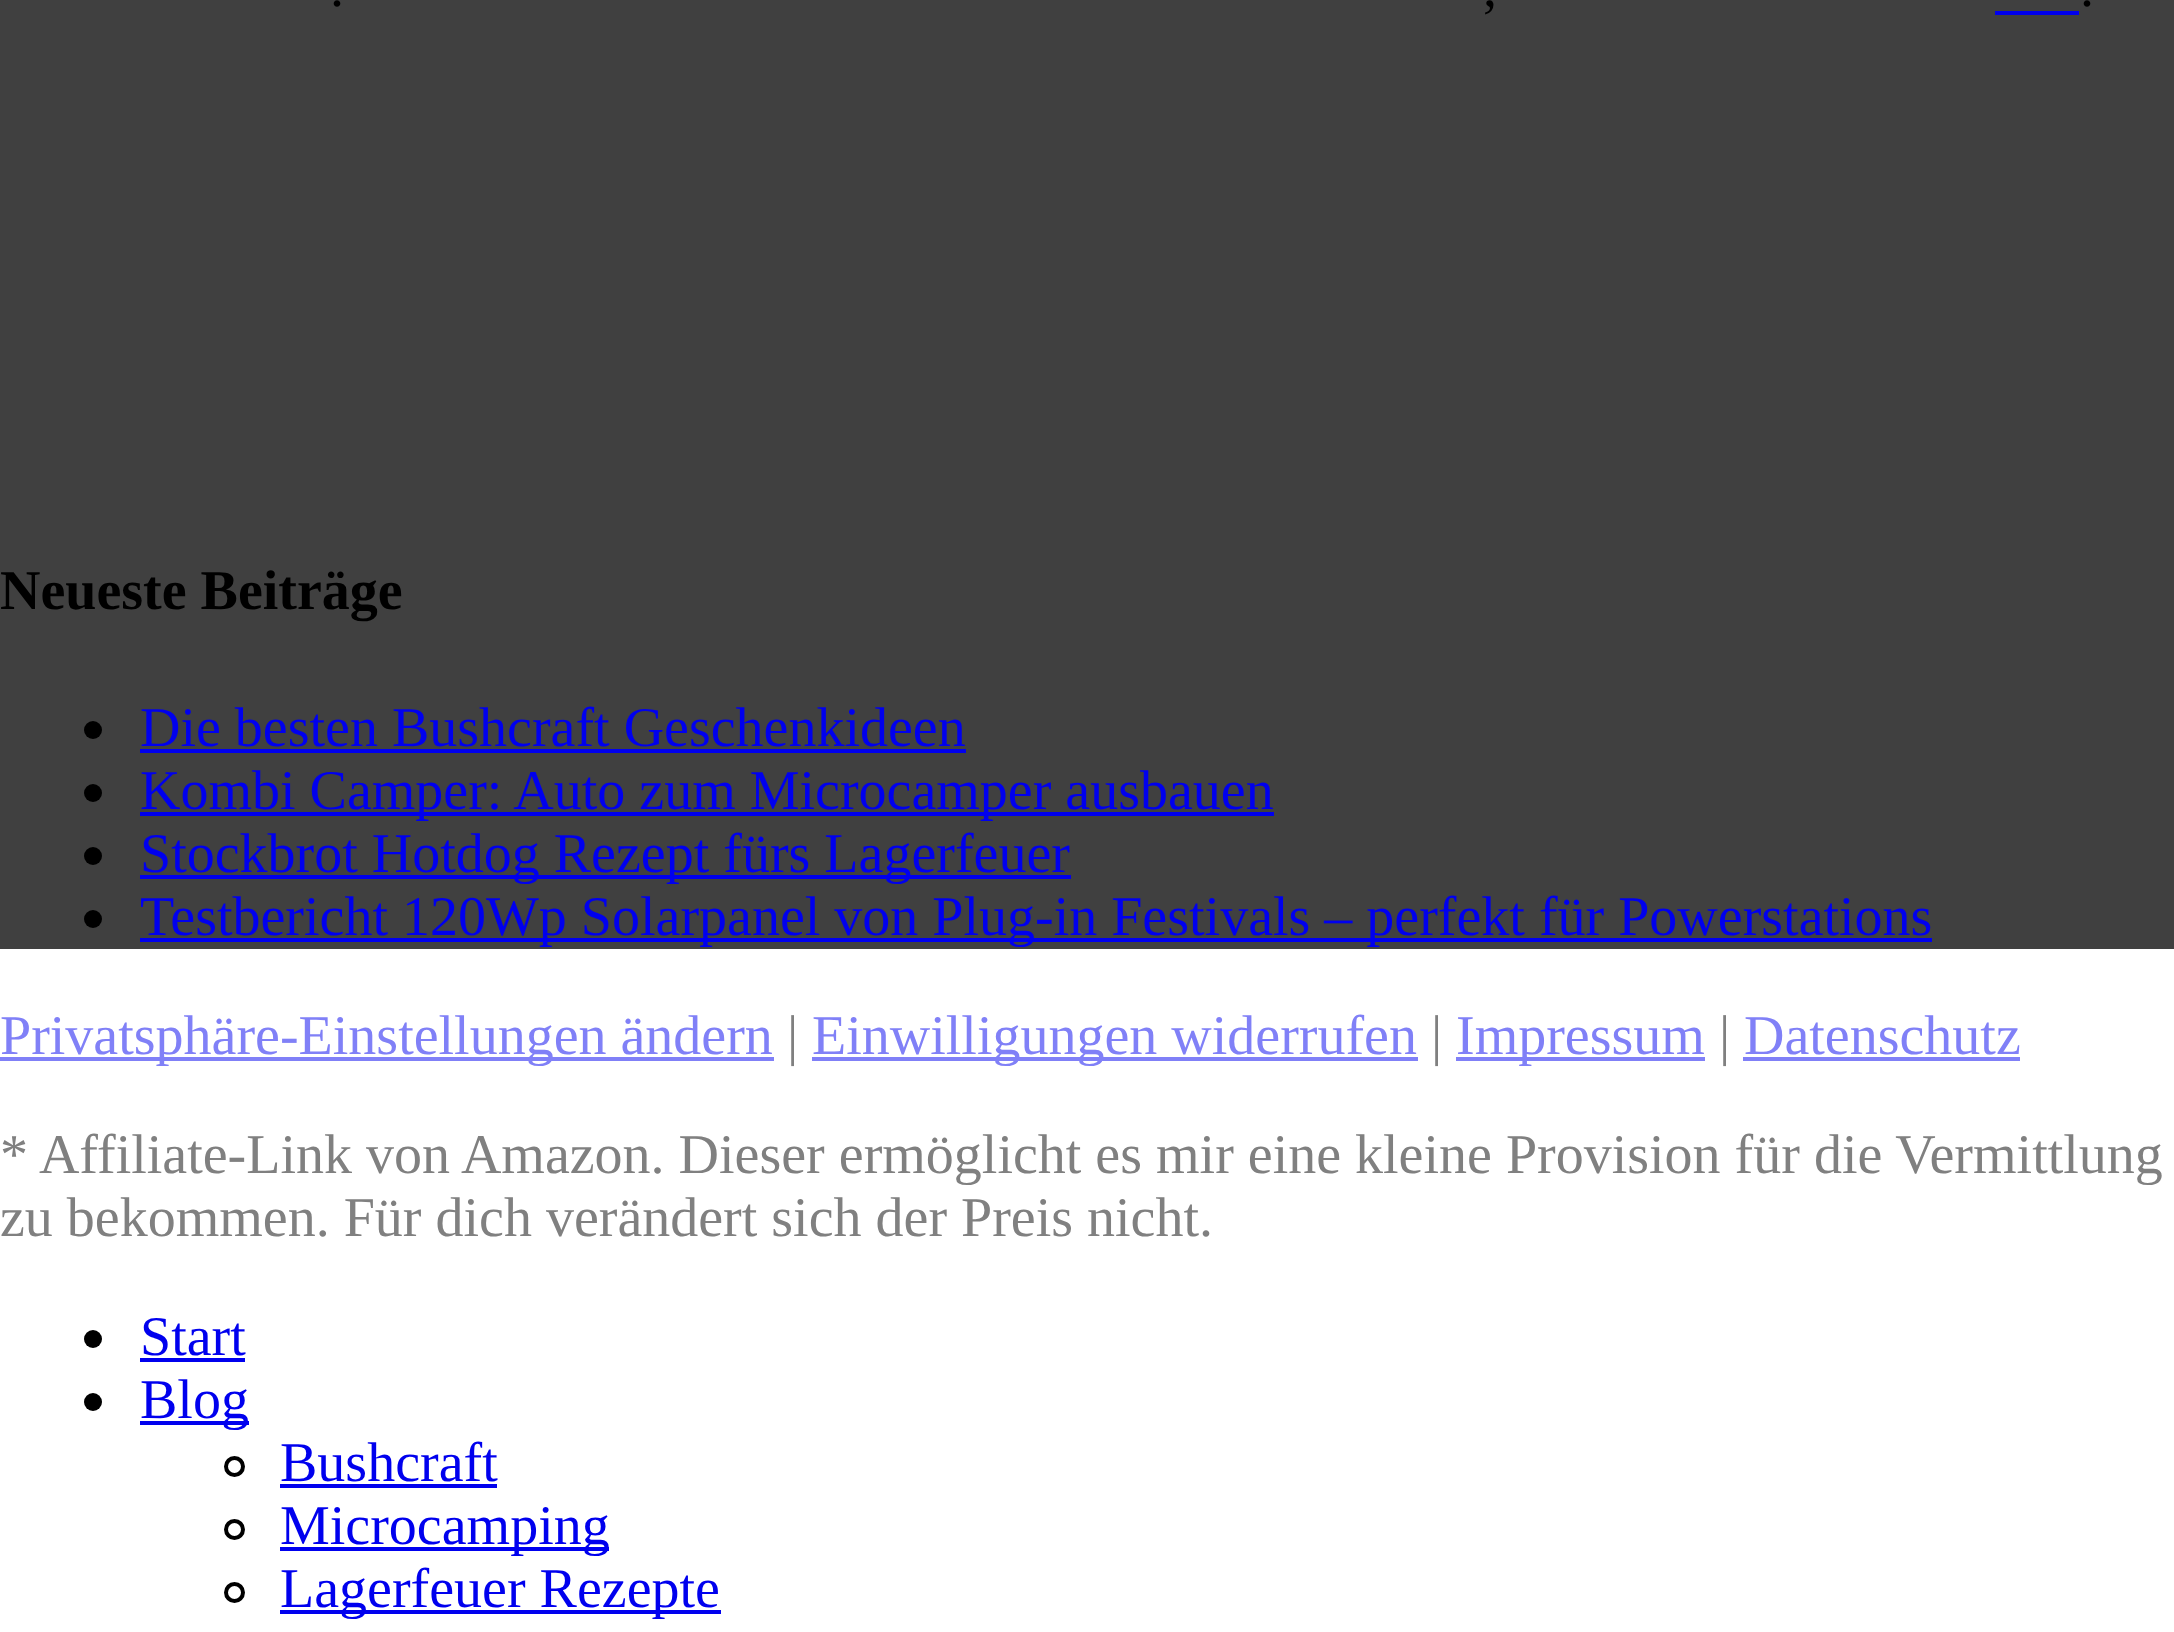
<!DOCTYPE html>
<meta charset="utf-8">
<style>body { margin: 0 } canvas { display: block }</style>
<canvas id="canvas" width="2174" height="1632"></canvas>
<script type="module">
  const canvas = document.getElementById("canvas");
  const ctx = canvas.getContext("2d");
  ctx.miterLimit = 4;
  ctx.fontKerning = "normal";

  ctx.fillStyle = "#ffffff";
  ctx.fillRect(0, 0, 2174, 1632);
  ctx.fillStyle = "#404040";
  ctx.fillRect(0, 0, 2174, 949);
  ctx.font = "56px Liberation Serif";
  ctx.fillStyle = "#000000";
  ctx.fillText(".", 330, 6);
  ctx.fillText(",", 1483, 6);
  ctx.fillText(".", 2080, 6);
  ctx.fillStyle = "#0000ee";
  ctx.fillRect(1995, 11, 84, 4);
  ctx.font = "bold 56px Liberation Serif";
  ctx.fillStyle = "#000000";
  ctx.fillText("Neueste Beiträge", 0, 609);
  ctx.beginPath();
  ctx.arc(93, 730, 9, 0, Math.PI * 2);
  ctx.fill();
  ctx.font = "56px Liberation Serif";
  ctx.fillStyle = "#0000ee";
  ctx.fillText("Die besten Bushcraft Geschenkideen", 140, 746);
  ctx.fillRect(140, 749, 826, 4);
  ctx.fillStyle = "#000000";
  ctx.beginPath();
  ctx.arc(93, 793, 9, 0, Math.PI * 2);
  ctx.fill();
  ctx.fillStyle = "#0000ee";
  ctx.fillRect(140, 812, 1134, 4);
  ctx.fillText("Kombi Camper: Auto zum Microcamper ausbauen", 140, 809);
  ctx.fillStyle = "#000000";
  ctx.beginPath();
  ctx.arc(93, 856, 9, 0, Math.PI * 2);
  ctx.fill();
  ctx.fillStyle = "#0000ee";
  ctx.fillRect(140, 875, 931, 4);
  ctx.fillText("Stockbrot Hotdog Rezept fürs Lagerfeuer", 140, 872);
  ctx.fillStyle = "#000000";
  ctx.beginPath();
  ctx.arc(93, 919, 9, 0, Math.PI * 2);
  ctx.fill();
  ctx.fillStyle = "#0000ee";
  ctx.fillRect(140, 938, 1792, 4);
  ctx.fillText("Testbericht 120Wp Solarpanel von Plug-in Festivals – perfekt für Powerstations", 140, 935);
  ctx.fillStyle = "#8080f7";
  ctx.fillRect(0, 1057, 774, 4);
  ctx.fillText("Privatsphäre-Einstellungen ändern", 0, 1054);
  ctx.fillStyle = "#808080";
  ctx.fillText("|", 787, 1054);
  ctx.fillStyle = "#8080f7";
  ctx.fillRect(812, 1057, 606, 4);
  ctx.fillText("Einwilligungen widerrufen", 812, 1054);
  ctx.fillStyle = "#808080";
  ctx.fillText("|", 1431, 1054);
  ctx.fillStyle = "#8080f7";
  ctx.fillRect(1456, 1057, 249, 4);
  ctx.fillText("Impressum", 1456, 1054);
  ctx.fillStyle = "#808080";
  ctx.fillText("|", 1719, 1054);
  ctx.fillStyle = "#8080f7";
  ctx.fillText("Datenschutz", 1744, 1054);
  ctx.fillRect(1743, 1057, 277, 4);
  ctx.fillStyle = "#808080";
  ctx.fillText("* Affiliate-Link von Amazon. Dieser ermöglicht es mir eine kleine Provision für die Vermittlung", 0, 1173);
  ctx.fillText("zu bekommen. Für dich verändert sich der Preis nicht.", 0, 1236);
  ctx.fillStyle = "#000000";
  ctx.beginPath();
  ctx.arc(93, 1339, 9, 0, Math.PI * 2);
  ctx.fill();
  ctx.fillStyle = "#0000ee";
  ctx.fillText("Start", 140, 1355);
  ctx.fillRect(140, 1358, 105, 4);
  ctx.fillStyle = "#000000";
  ctx.beginPath();
  ctx.arc(93, 1402, 9, 0, Math.PI * 2);
  ctx.fill();
  ctx.fillStyle = "#0000ee";
  ctx.fillRect(140, 1421, 109, 4);
  ctx.fillText("Blog", 140, 1418);
  ctx.beginPath();
  ctx.arc(234.5, 1466.5, 8.5, 0, Math.PI * 2);
  ctx.strokeStyle = "#000000";
  ctx.lineWidth = 4;
  ctx.stroke();
  ctx.fillText("Bushcraft", 280, 1481);
  ctx.fillRect(280, 1484, 217, 4);
  ctx.beginPath();
  ctx.arc(234.5, 1529.5, 8.5, 0, Math.PI * 2);
  ctx.stroke();
  ctx.fillRect(280, 1547, 329, 4);
  ctx.fillText("Microcamping", 280, 1544);
  ctx.beginPath();
  ctx.arc(234.5, 1592.5, 8.5, 0, Math.PI * 2);
  ctx.stroke();
  ctx.fillRect(280, 1610, 441, 4);
  ctx.fillText("Lagerfeuer Rezepte", 280, 1607);
</script>
